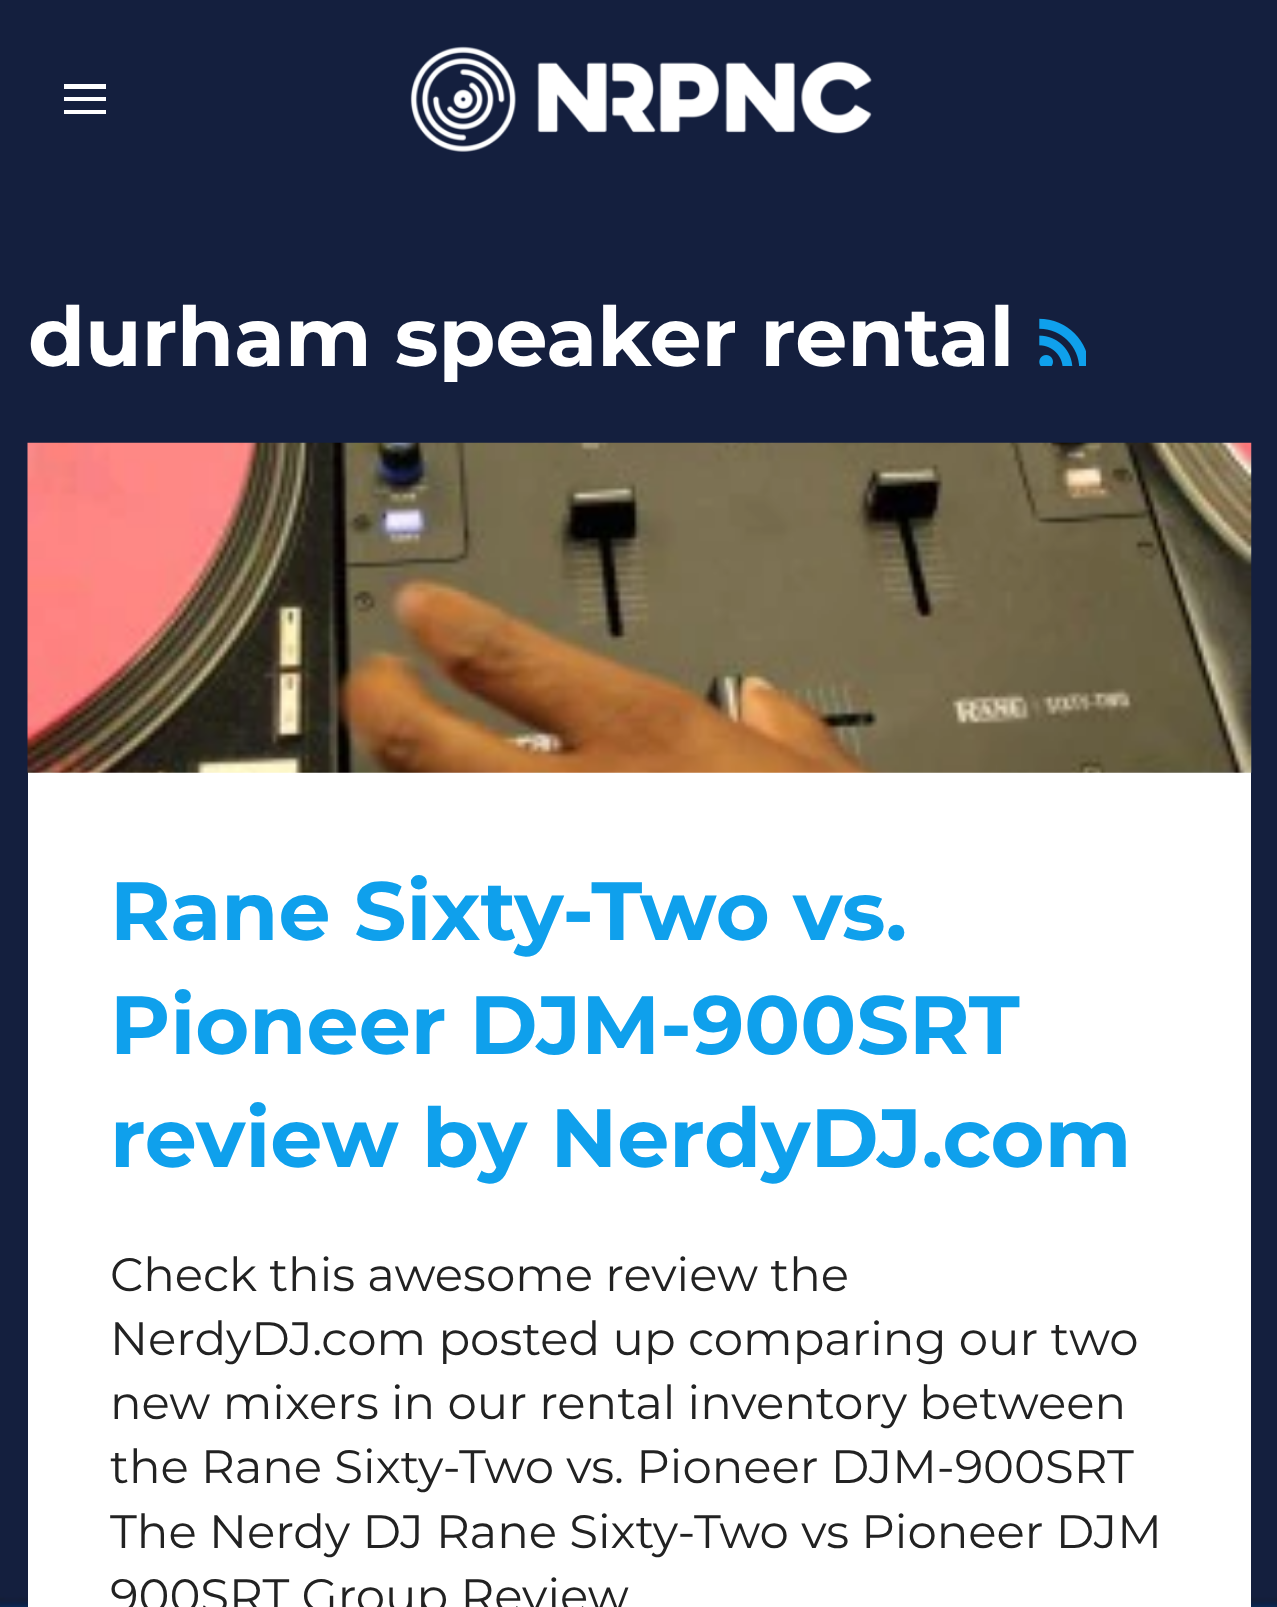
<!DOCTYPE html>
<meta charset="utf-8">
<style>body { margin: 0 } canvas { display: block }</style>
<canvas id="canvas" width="1277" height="1607"></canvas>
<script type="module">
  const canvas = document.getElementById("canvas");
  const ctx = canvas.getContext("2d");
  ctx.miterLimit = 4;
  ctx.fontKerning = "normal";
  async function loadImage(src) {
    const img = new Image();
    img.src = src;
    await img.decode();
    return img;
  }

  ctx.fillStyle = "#ffffff";
  ctx.fillRect(0, 0, 1277, 1607);
  ctx.drawImage(await loadImage("img1.png"), 0, 0, 1277, 1607);
  ctx.beginPath();
  ctx.moveTo(64, 97);
  ctx.lineTo(106, 97);
  ctx.lineTo(106, 101);
  ctx.lineTo(64, 101);
  ctx.closePath();
  ctx.moveTo(64, 84);
  ctx.lineTo(106, 84);
  ctx.lineTo(106, 89);
  ctx.lineTo(64, 89);
  ctx.closePath();
  ctx.moveTo(64, 110);
  ctx.lineTo(106, 110);
  ctx.lineTo(106, 114);
  ctx.lineTo(64, 114);
  ctx.closePath();
  ctx.fill();
  ctx.drawImage(await loadImage("img2.png"), 410, 46, 462, 106);
  ctx.font = "bold 82.5px Montserrat";
  ctx.fillText("durham speaker rental", 28, 366);
  ctx.drawImage(await loadImage("img3.png"), 1039, 318, 47, 48);
  ctx.fillRect(28, 772, 1223, 835);
  ctx.drawImage(await loadImage("img4.png"), 27, 442, 1225, 331);
  ctx.fillStyle = "#0fa0ec";
  ctx.fillText("Rane Sixty-Two vs.", 110, 940);
  ctx.fillText("Pioneer DJM-900SRT", 110, 1054);
  ctx.fillText("review by NerdyDJ.com", 110, 1167);
  ctx.font = "46.75px Montserrat";
  ctx.fillStyle = "#222222";
  ctx.fillText("Check this awesome review the", 110, 1291);
  ctx.fillText("NerdyDJ.com posted up comparing our two", 110, 1355);
  ctx.fillText("new mixers in our rental inventory between", 110, 1419);
  ctx.fillText("the Rane Sixty-Two vs. Pioneer DJM-900SRT", 110, 1483);
  ctx.fillText("The Nerdy DJ Rane Sixty-Two vs Pioneer DJM", 110, 1548);
  ctx.fillText("900SRT Group Review", 110, 1612);
</script>
